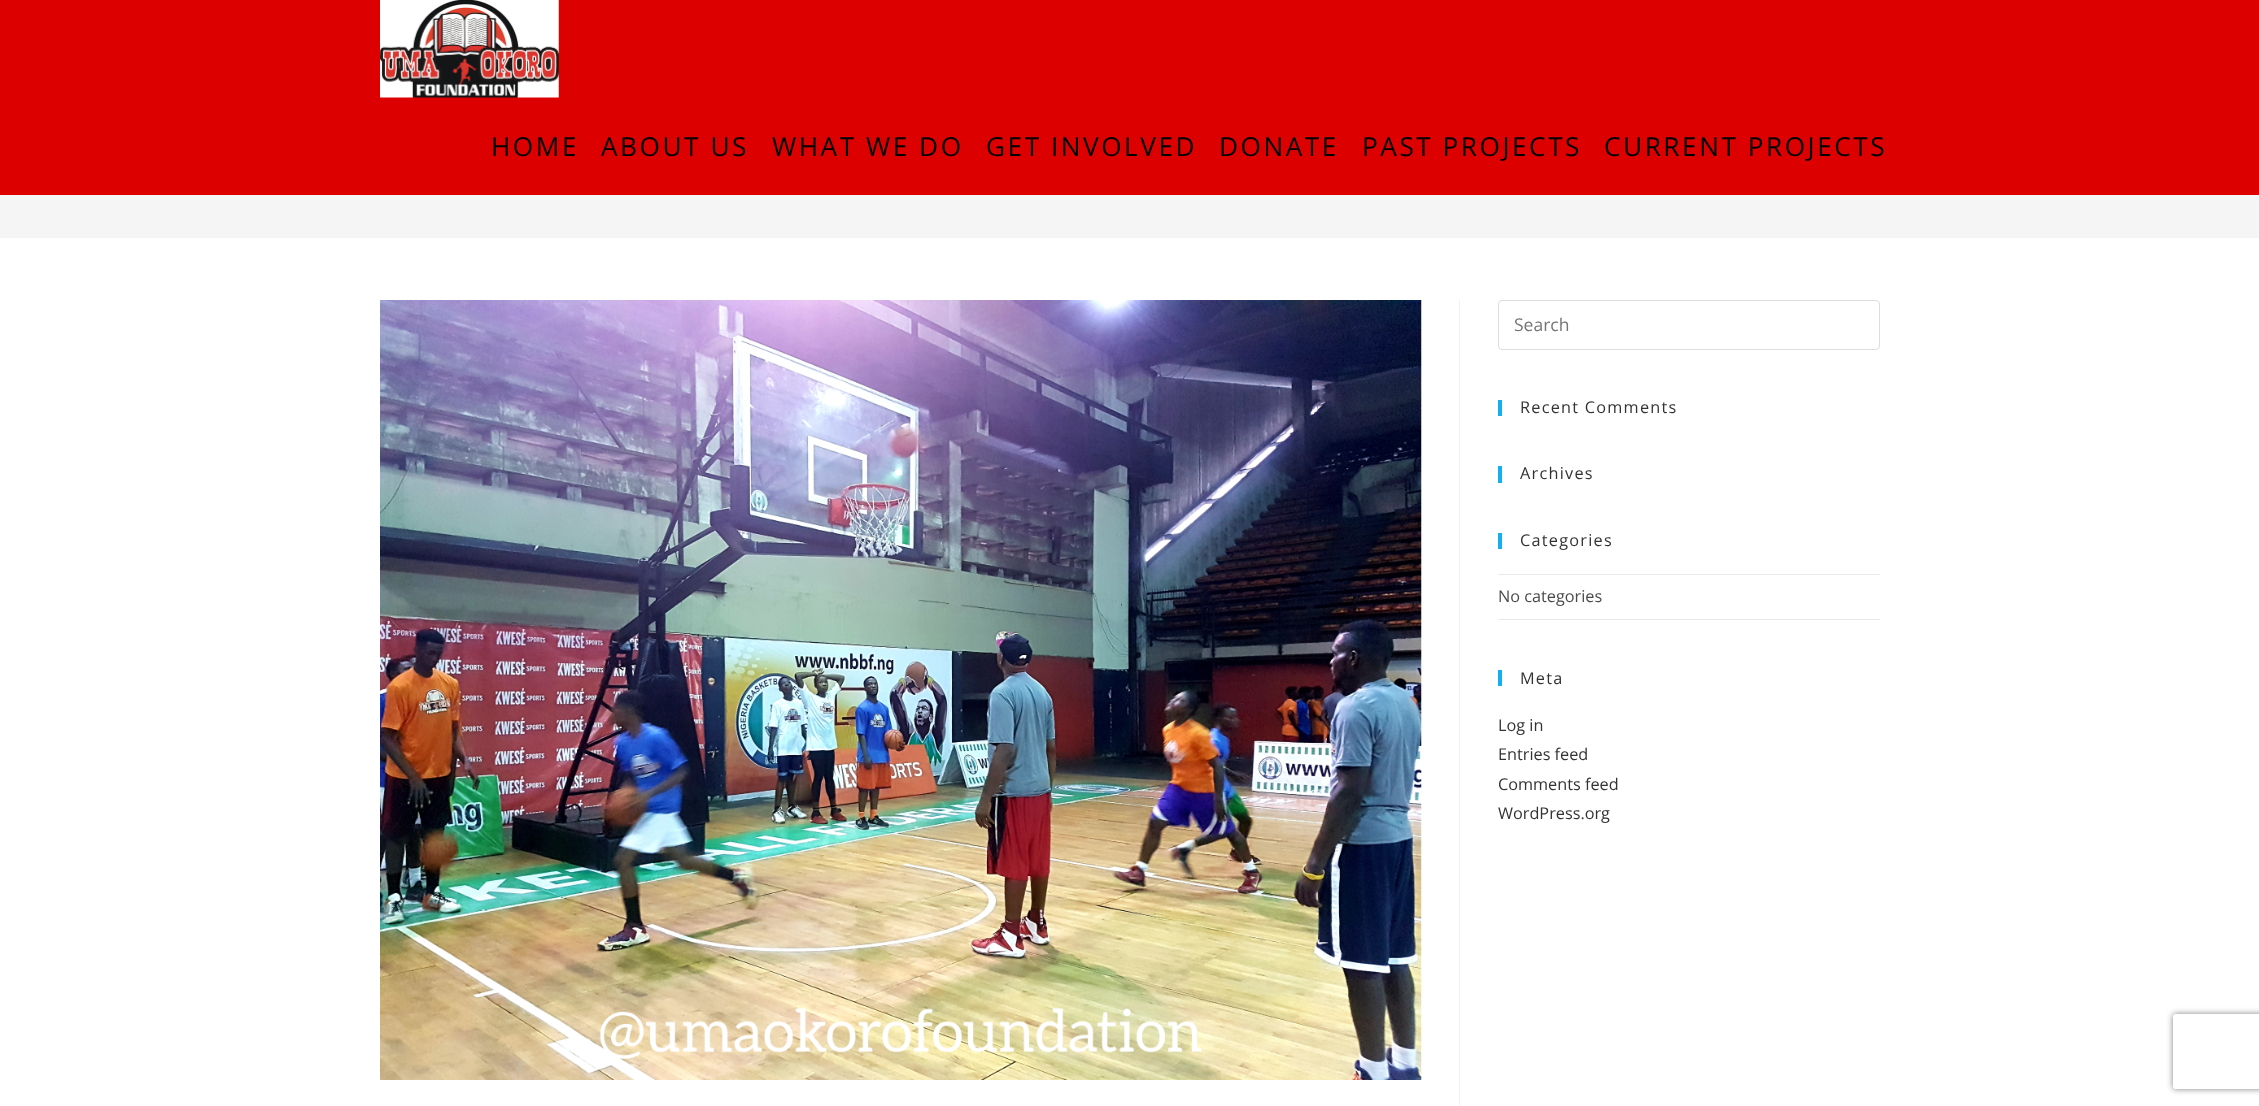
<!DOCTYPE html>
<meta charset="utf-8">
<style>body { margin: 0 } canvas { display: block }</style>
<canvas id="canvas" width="2259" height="1106"></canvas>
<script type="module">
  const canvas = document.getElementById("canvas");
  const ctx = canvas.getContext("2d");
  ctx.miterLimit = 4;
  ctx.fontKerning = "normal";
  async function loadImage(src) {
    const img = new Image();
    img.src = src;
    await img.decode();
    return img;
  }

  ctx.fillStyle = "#ffffff";
  ctx.fillRect(0, 0, 2259, 1106);
  ctx.fillStyle = "#dd0000";
  ctx.fillRect(0, 0, 2259, 195);
  ctx.drawImage(await loadImage("img1.png"), 380, 0, 179, 98);
  ctx.letterSpacing = "2.5px";
  ctx.font = "26.25px Open Sans";
  ctx.fillStyle = "#000000";
  ctx.fillText("HOME", 491, 156);
  ctx.fillText("ABOUT US", 601, 156);
  ctx.fillText("WHAT WE DO", 772, 156);
  ctx.fillText("GET INVOLVED", 986, 156);
  ctx.fillText("DONATE", 1219, 156);
  ctx.fillText("PAST PROJECTS", 1362, 156);
  ctx.fillText("CURRENT PROJECTS", 1604, 156);
  ctx.fillStyle = "#f5f5f5";
  ctx.fillRect(0, 195, 2259, 43);
  ctx.fillStyle = "#f1f1f1";
  ctx.fillRect(1459, 300, 1, 806);
  ctx.drawImage(await loadImage("img2.png"), 380, 300, 1042, 780);
  ctx.beginPath();
  ctx.roundRect(1498.5, 300.5, 381, 49, 3.5);
  ctx.strokeStyle = "#dddddd";
  ctx.stroke();
  ctx.letterSpacing = "0px";
  ctx.font = "17.5px Open Sans";
  ctx.fillStyle = "#757575";
  ctx.fillText("Search", 1514, 331);
  ctx.fillStyle = "#13aff0";
  ctx.fillRect(1498, 400, 4, 16);
  ctx.letterSpacing = "1.25px";
  ctx.font = "16.25px Open Sans";
  ctx.fillStyle = "#333333";
  ctx.fillText("Recent Comments", 1520, 413);
  ctx.fillStyle = "#13aff0";
  ctx.fillRect(1498, 466, 4, 17);
  ctx.fillStyle = "#333333";
  ctx.fillText("Archives", 1520, 479);
  ctx.fillStyle = "#13aff0";
  ctx.fillRect(1498, 533, 4, 16);
  ctx.fillStyle = "#333333";
  ctx.fillText("Categories", 1520, 546);
  ctx.fillStyle = "#e9e9e9";
  ctx.fillRect(1498, 574, 382, 1);
  ctx.fillRect(1498, 619, 382, 1);
  ctx.letterSpacing = "0px";
  ctx.fillStyle = "#4a4a4a";
  ctx.fillText("No categories", 1498, 602);
  ctx.fillStyle = "#13aff0";
  ctx.fillRect(1498, 670, 4, 16);
  ctx.letterSpacing = "1.25px";
  ctx.fillStyle = "#333333";
  ctx.fillText("Meta", 1520, 684);
  ctx.letterSpacing = "0px";
  ctx.fillText("Log in", 1498, 731);
  ctx.fillText("Entries feed", 1498, 760);
  ctx.fillText("Comments feed", 1498, 790);
  ctx.fillText("WordPress.org", 1498, 819);
  ctx.save();
  ctx.beginPath();
  ctx.moveTo(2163, 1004);
  ctx.lineTo(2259, 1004);
  ctx.lineTo(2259, 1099);
  ctx.lineTo(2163, 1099);
  ctx.closePath();
  ctx.moveTo(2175.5, 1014);
  ctx.lineTo(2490.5, 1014);
  ctx.bezierCurveTo(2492, 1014, 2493, 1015, 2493, 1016.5);
  ctx.lineTo(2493, 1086.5);
  ctx.bezierCurveTo(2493, 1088, 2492, 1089, 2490.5, 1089);
  ctx.lineTo(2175.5, 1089);
  ctx.bezierCurveTo(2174, 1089, 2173, 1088, 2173, 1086.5);
  ctx.lineTo(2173, 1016.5);
  ctx.bezierCurveTo(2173, 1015, 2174, 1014, 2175.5, 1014);
  ctx.closePath();
  ctx.clip("evenodd");
  ctx.fillStyle = "#808080";
  ctx.filter = "blur(3px)";
  ctx.beginPath();
  ctx.roundRect(2173, 1014, 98, 75, 2.5);
  ctx.fill();
  ctx.filter = "none";
  ctx.restore();
</script>
